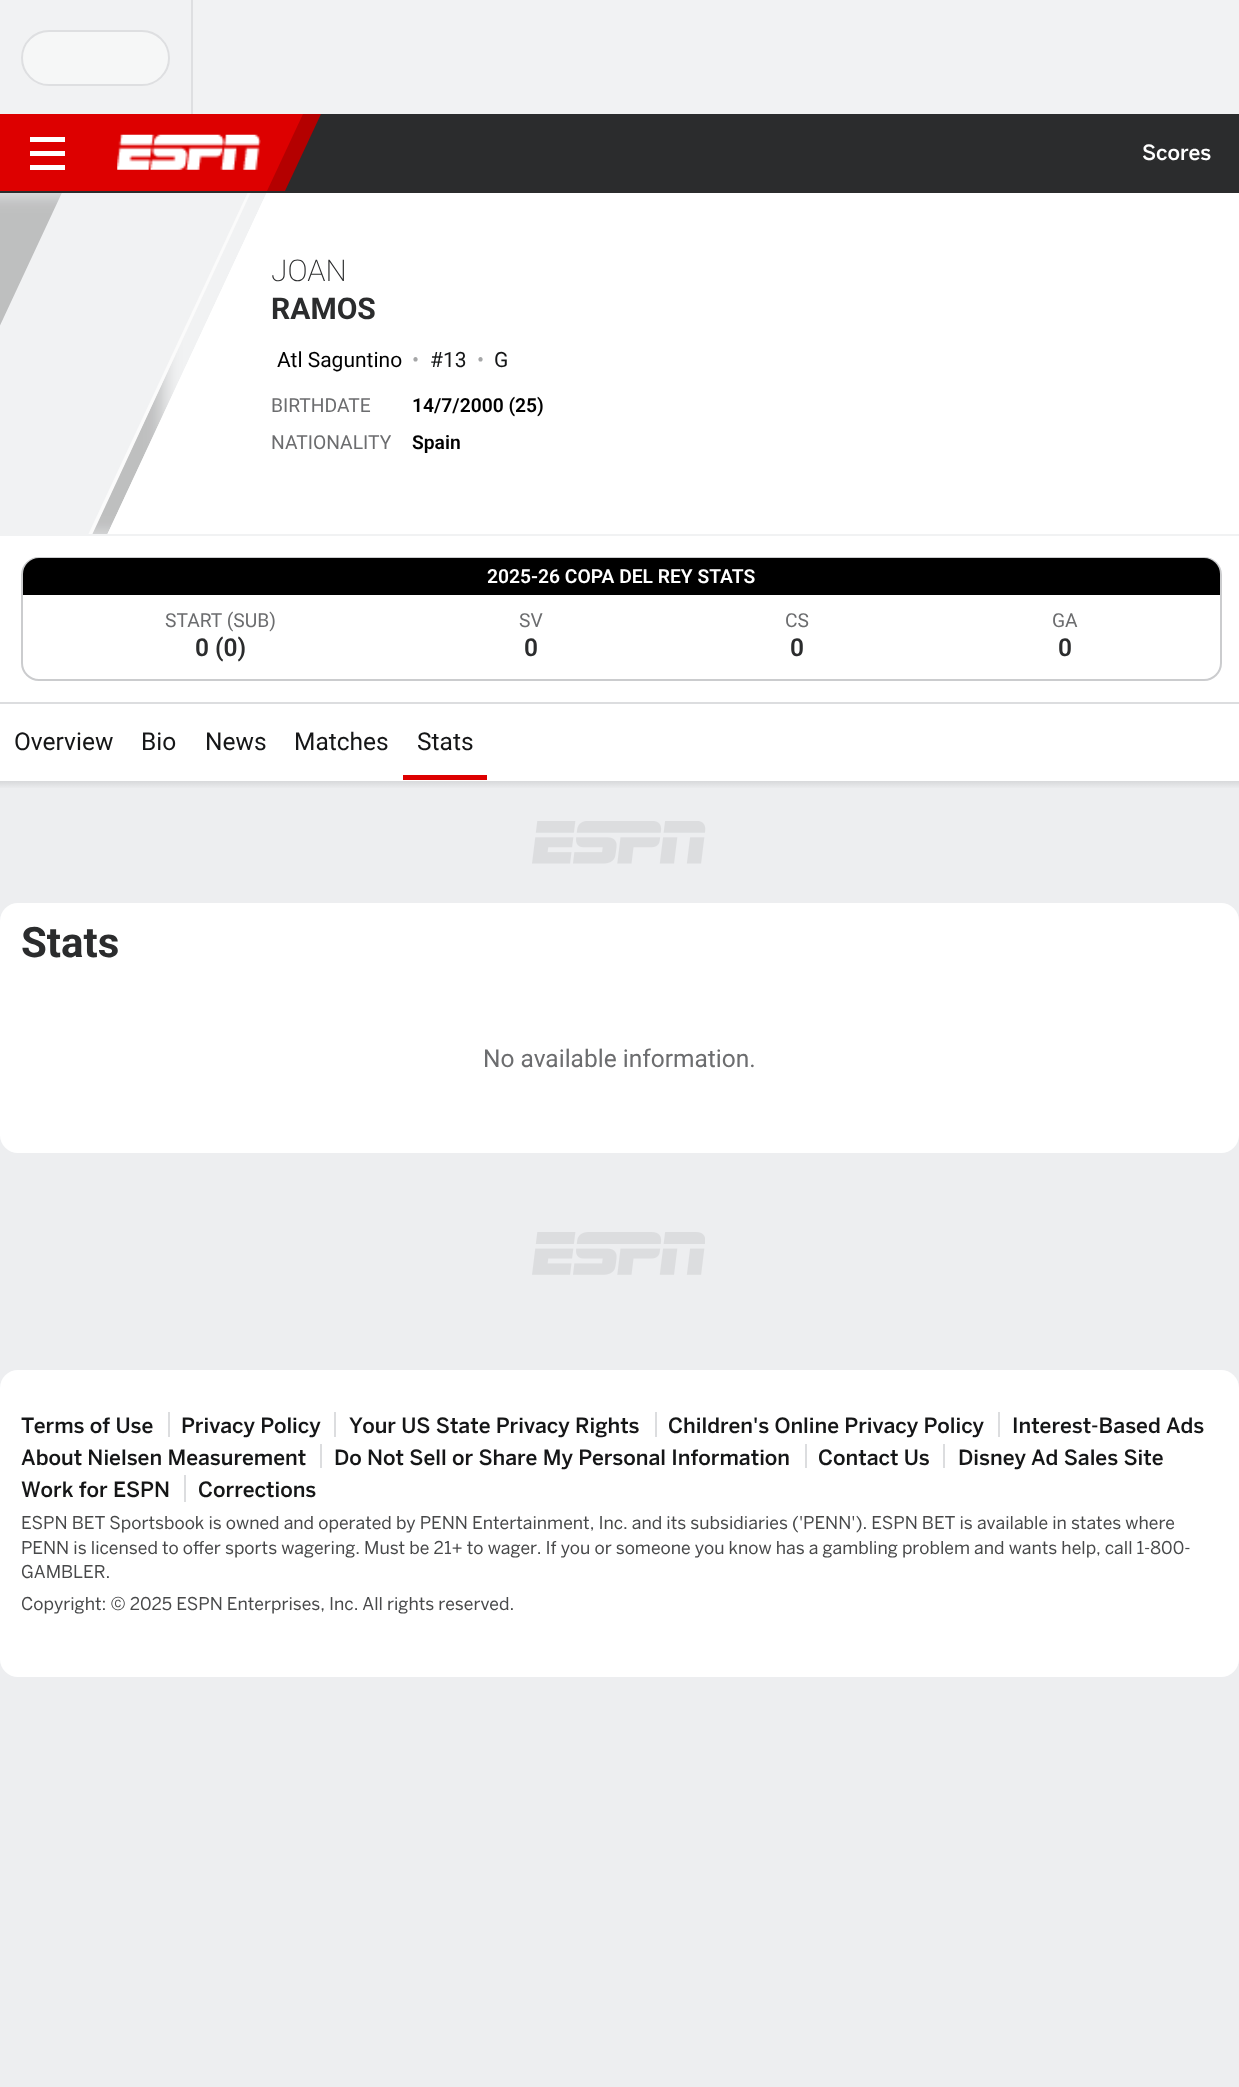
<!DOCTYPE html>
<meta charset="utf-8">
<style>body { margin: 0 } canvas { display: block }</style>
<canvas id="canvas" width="1239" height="2087"></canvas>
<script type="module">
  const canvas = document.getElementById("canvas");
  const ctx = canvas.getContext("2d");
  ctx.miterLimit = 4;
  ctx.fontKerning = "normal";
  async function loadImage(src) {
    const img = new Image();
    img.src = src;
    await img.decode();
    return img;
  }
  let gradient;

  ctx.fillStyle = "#edeef0";
  ctx.fillRect(0, 0, 1239, 2087);
  ctx.fillStyle = "#f1f2f3";
  ctx.fillRect(0, 0, 1239, 114);
  ctx.fillStyle = "#dedfe1";
  ctx.fillRect(191, 0, 2, 114);
  ctx.fillStyle = "#f6f7f7";
  ctx.beginPath();
  ctx.roundRect(22, 31, 147, 54, 27);
  ctx.fill();
  ctx.strokeStyle = "#dedfe1";
  ctx.lineWidth = 2;
  ctx.stroke();
  ctx.fillStyle = "#ffffff";
  ctx.fillRect(0, 193, 1239, 509);
  ctx.fillStyle = "#f1f2f3";
  ctx.fillRect(0, 534, 1239, 2);
  ctx.fillRect(0, 193, 267, 341);
  ctx.beginPath();
  ctx.roundRect(22, 558, 1199, 122, 17);
  ctx.strokeStyle = "#cbccce";
  ctx.stroke();
  ctx.fillStyle = "#000000";
  ctx.beginPath();
  ctx.roundRect(23, 558, 1197, 37, [16, 16, 0, 0]);
  ctx.fill();
  ctx.save();
  ctx.beginPath();
  ctx.rect(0, 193, 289, 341);
  ctx.clip();
  ctx.beginPath();
  ctx.moveTo(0, 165);
  ctx.lineTo(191, 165);
  ctx.lineTo(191, 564);
  ctx.lineTo(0, 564);
  ctx.closePath();
  ctx.moveTo(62.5, 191.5);
  ctx.lineTo(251.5, 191.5);
  ctx.lineTo(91.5, 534.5);
  ctx.lineTo(-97.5, 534.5);
  ctx.closePath();
  ctx.clip("evenodd");
  ctx.fillStyle = "rgba(72, 73, 73, 0.3)";
  ctx.filter = "blur(9px)";
  ctx.beginPath();
  ctx.rect(-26, 193, 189, 343);
  ctx.fill();
  ctx.filter = "none";
  ctx.restore();
  ctx.fillStyle = "#2b2c2d";
  ctx.fillRect(0, 114, 1239, 79);
  ctx.fillStyle = "#b40000";
  ctx.beginPath();
  ctx.moveTo(93, 114);
  ctx.lineTo(321, 114);
  ctx.lineTo(285, 191);
  ctx.lineTo(57, 191);
  ctx.closePath();
  ctx.fill();
  ctx.fillStyle = "#dd0000";
  ctx.beginPath();
  ctx.moveTo(-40, 114);
  ctx.lineTo(303, 114);
  ctx.lineTo(267, 191);
  ctx.lineTo(-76, 191);
  ctx.closePath();
  ctx.fill();
  ctx.drawImage(await loadImage("img1.png"), 117, 134, 144, 36);
  ctx.fillStyle = "#ffffff";
  ctx.fillRect(30, 151, 35, 5);
  ctx.fillRect(30, 137, 35, 5);
  ctx.fillRect(30, 165, 35, 5);
  ctx.font = "500 21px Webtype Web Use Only";
  ctx.fillText("Scores", 1142, 160);
  ctx.fillStyle = "#dcdddf";
  ctx.fillRect(0, 702, 1239, 2);
  ctx.save();
  ctx.beginPath();
  ctx.rect(0, 193, 289, 341);
  ctx.clip();
  ctx.fillStyle = "#fbfbfb";
  ctx.beginPath();
  ctx.moveTo(248, 192);
  ctx.lineTo(251, 192);
  ctx.lineTo(92, 535);
  ctx.lineTo(88, 535);
  ctx.closePath();
  ctx.fill();
  ctx.fillStyle = "#ffffff";
  ctx.beginPath();
  ctx.moveTo(267, 192);
  ctx.lineTo(451, 192);
  ctx.lineTo(291, 535);
  ctx.lineTo(107, 535);
  ctx.closePath();
  ctx.fill();
  ctx.fillStyle = "rgba(255, 255, 255, 0.9)";
  ctx.beginPath();
  ctx.moveTo(267, 192);
  ctx.lineTo(451, 192);
  ctx.lineTo(291, 535);
  ctx.lineTo(107, 535);
  ctx.closePath();
  ctx.fill();
  ctx.restore();
  ctx.font = "200 30px Roboto";
  ctx.fillStyle = "#2b2c2d";
  ctx.fillText("JOAN", 271, 281);
  ctx.font = "bold 30px Roboto";
  ctx.fillText("RAMOS", 271, 319);
  ctx.font = "21px Roboto";
  ctx.fillStyle = "#000000";
  ctx.fillText("Atl Saguntino", 277, 367);
  ctx.fillStyle = "#a5a6a7";
  ctx.fillText("•", 412, 367);
  ctx.fillStyle = "#151617";
  ctx.fillText("#13", 430, 367);
  ctx.fillStyle = "#a5a6a7";
  ctx.fillText("•", 477, 367);
  ctx.fillStyle = "#151617";
  ctx.fillText("G", 494, 367);
  ctx.font = "19.25px Roboto";
  ctx.fillStyle = "#6c6d6f";
  ctx.fillText("BIRTHDATE", 271, 412);
  ctx.font = "600 19.25px Roboto";
  ctx.fillStyle = "#000000";
  ctx.fillText("14/7/2000 (25)", 412, 412);
  ctx.font = "19.25px Roboto";
  ctx.fillStyle = "#6c6d6f";
  ctx.fillText("NATIONALITY", 271, 449);
  ctx.font = "600 19.25px Roboto";
  ctx.fillStyle = "#000000";
  ctx.fillText("Spain", 412, 449);
  ctx.fillStyle = "#ffffff";
  ctx.fillText("2025-26 COPA DEL REY STATS", 487, 583);
  ctx.font = "19.25px Roboto";
  ctx.fillStyle = "#6c6d6f";
  ctx.fillText("START (SUB)", 165, 627);
  ctx.font = "600 24.5px Roboto";
  ctx.fillStyle = "#2b2c2d";
  ctx.fillText("0 (0)", 195, 656);
  ctx.font = "19.25px Roboto";
  ctx.fillStyle = "#6c6d6f";
  ctx.fillText("SV", 519, 627);
  ctx.font = "600 24.5px Roboto";
  ctx.fillStyle = "#2b2c2d";
  ctx.fillText("0", 524, 656);
  ctx.font = "19.25px Roboto";
  ctx.fillStyle = "#6c6d6f";
  ctx.fillText("CS", 785, 627);
  ctx.font = "600 24.5px Roboto";
  ctx.fillStyle = "#2b2c2d";
  ctx.fillText("0", 790, 656);
  ctx.font = "19.25px Roboto";
  ctx.fillStyle = "#6c6d6f";
  ctx.fillText("GA", 1052, 627);
  ctx.font = "600 24.5px Roboto";
  ctx.fillStyle = "#2b2c2d";
  ctx.fillText("0", 1058, 656);
  ctx.fillStyle = "#ffffff";
  ctx.fillRect(0, 704, 1239, 77);
  ctx.font = "24.5px Roboto";
  ctx.fillStyle = "#151617";
  ctx.fillText("Overview", 14, 750);
  ctx.fillText("Bio", 141, 750);
  ctx.fillText("News", 205, 750);
  ctx.fillText("Matches", 294, 750);
  ctx.fillStyle = "#dd0000";
  ctx.fillRect(403, 775, 84, 5);
  ctx.fillStyle = "#151617";
  ctx.fillText("Stats", 417, 750);
  gradient = ctx.createLinearGradient(620, 780, 620, 789);
  gradient.addColorStop(0, "#d5d6d8");
  gradient.addColorStop(1, "#edeef0");
  ctx.fillStyle = gradient;
  ctx.fillRect(0, 781, 1239, 7);
  ctx.drawImage(await loadImage("img2.png"), 532, 821, 174, 43);
  ctx.fillStyle = "#ffffff";
  ctx.beginPath();
  ctx.roundRect(0, 903, 1239, 250, 18);
  ctx.fill();
  ctx.font = "bold 42px Roboto";
  ctx.fillStyle = "#2b2c2d";
  ctx.fillText("Stats", 21, 957);
  ctx.font = "24.5px Roboto";
  ctx.fillStyle = "#6c6d6f";
  ctx.fillText("No available information.", 483, 1067);
  ctx.drawImage(await loadImage("img3.png"), 532, 1232, 173, 43);
  ctx.fillStyle = "#ffffff";
  ctx.beginPath();
  ctx.roundRect(0, 1370, 1239, 307, 18);
  ctx.fill();
  ctx.font = "500 21px Webtype Web Use Only";
  ctx.fillStyle = "#151617";
  ctx.fillText("Terms of Use", 21, 1433);
  ctx.fillStyle = "#dcdddf";
  ctx.fillRect(168, 1412, 2, 25);
  ctx.fillStyle = "#151617";
  ctx.fillText("Privacy Policy", 181, 1433);
  ctx.fillStyle = "#dcdddf";
  ctx.fillRect(334, 1412, 2, 25);
  ctx.fillStyle = "#151617";
  ctx.fillText("Your US State Privacy Rights", 349, 1433);
  ctx.fillStyle = "#dcdddf";
  ctx.fillRect(655, 1412, 2, 25);
  ctx.fillStyle = "#151617";
  ctx.fillText("Children's Online Privacy Policy", 668, 1433);
  ctx.fillStyle = "#dcdddf";
  ctx.fillRect(998, 1412, 2, 25);
  ctx.fillStyle = "#151617";
  ctx.fillText("Interest-Based Ads", 1012, 1433);
  ctx.fillText("About Nielsen Measurement", 21, 1465);
  ctx.fillStyle = "#dcdddf";
  ctx.fillRect(320, 1444, 2, 24);
  ctx.fillStyle = "#151617";
  ctx.fillText("Do Not Sell or Share My Personal Information", 334, 1465);
  ctx.fillStyle = "#dcdddf";
  ctx.fillRect(805, 1444, 2, 24);
  ctx.fillStyle = "#151617";
  ctx.fillText("Contact Us", 818, 1465);
  ctx.fillStyle = "#dcdddf";
  ctx.fillRect(943, 1444, 2, 24);
  ctx.fillStyle = "#151617";
  ctx.fillText("Disney Ad Sales Site", 958, 1465);
  ctx.fillText("Work for ESPN", 21, 1497);
  ctx.fillStyle = "#dcdddf";
  ctx.fillRect(184, 1475, 2, 27);
  ctx.fillStyle = "#151617";
  ctx.fillText("Corrections", 198, 1497);
  ctx.font = "17.5px Webtype Web Use Only";
  ctx.fillStyle = "#48494a";
  ctx.fillText("ESPN BET Sportsbook is owned and operated by PENN Entertainment, Inc. and its subsidiaries ('PENN'). ESPN BET is available in states where", 21, 1529);
  ctx.fillText("PENN is licensed to offer sports wagering. Must be 21+ to wager. If you or someone you know has a gambling problem and wants help, call 1-800-", 21, 1554);
  ctx.fillText("GAMBLER.", 21, 1578);
  ctx.fillText("Copyright: © 2025 ESPN Enterprises, Inc. All rights reserved.", 21, 1610);
</script>
